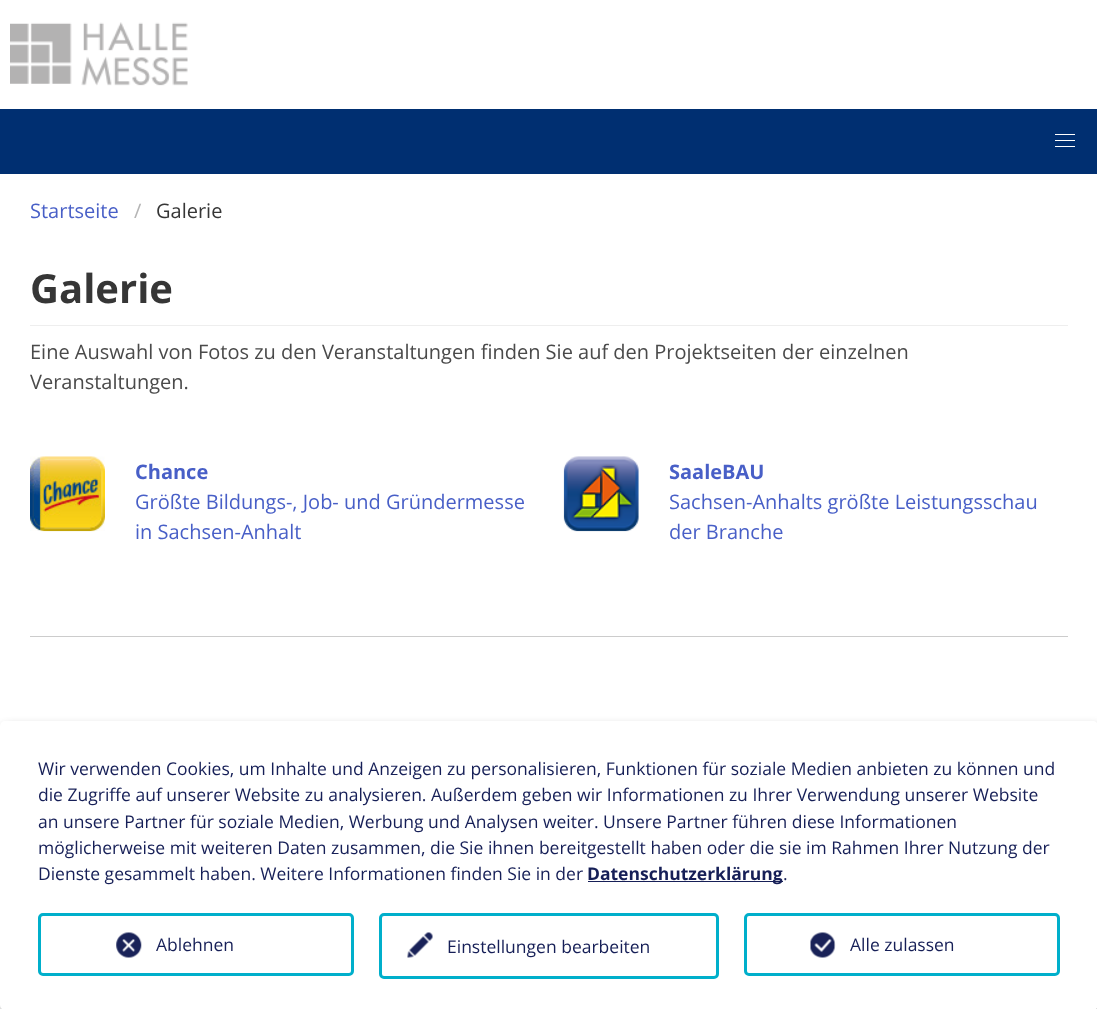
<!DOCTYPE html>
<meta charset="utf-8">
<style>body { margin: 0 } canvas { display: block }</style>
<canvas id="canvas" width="1097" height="1009"></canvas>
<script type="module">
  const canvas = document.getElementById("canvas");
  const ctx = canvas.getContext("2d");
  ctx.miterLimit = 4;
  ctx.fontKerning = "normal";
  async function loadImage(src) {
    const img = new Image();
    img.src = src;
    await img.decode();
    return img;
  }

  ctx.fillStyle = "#ffffff";
  ctx.fillRect(0, 0, 1097, 1009);
  ctx.drawImage(await loadImage("img1.png"), 10, 22, 178, 64);
  ctx.fillStyle = "#002f71";
  ctx.fillRect(0, 109, 1097, 65);
  ctx.fillStyle = "#ffffff";
  ctx.fillRect(1055, 134, 20, 1);
  ctx.fillRect(1055, 140, 20, 1);
  ctx.fillRect(1055, 146, 20, 1);
  ctx.font = "20px Open Sans";
  ctx.fillStyle = "#485fc7";
  ctx.fillText("Startseite", 30, 218);
  ctx.fillStyle = "#b5b5b5";
  ctx.fillText("/", 134, 218);
  ctx.fillStyle = "#363636";
  ctx.fillText("Galerie", 156, 218);
  ctx.fillStyle = "#eeeeee";
  ctx.fillRect(30, 325, 1038, 1);
  ctx.font = "bold 40px Open Sans";
  ctx.fillStyle = "#363636";
  ctx.fillText("Galerie", 30, 303);
  ctx.font = "20px Open Sans";
  ctx.fillStyle = "#4a4a4a";
  ctx.fillText("Eine Auswahl von Fotos zu den Veranstaltungen finden Sie auf den Projektseiten der einzelnen", 30, 359);
  ctx.fillText("Veranstaltungen.", 30, 389);
  ctx.drawImage(await loadImage("img2.png"), 30, 456, 75, 76);
  ctx.font = "bold 20px Open Sans";
  ctx.fillStyle = "#485fc7";
  ctx.fillText("Chance", 135, 479);
  ctx.font = "20px Open Sans";
  ctx.fillText("Größte Bildungs-, Job- und Gründermesse", 135, 509);
  ctx.fillText("in Sachsen-Anhalt", 135, 539);
  ctx.drawImage(await loadImage("img3.png"), 563, 456, 76, 76);
  ctx.font = "bold 20px Open Sans";
  ctx.fillText("SaaleBAU", 669, 479);
  ctx.font = "20px Open Sans";
  ctx.fillText("Sachsen-Anhalts größte Leistungsschau", 669, 509);
  ctx.fillText("der Branche", 669, 539);
  ctx.fillStyle = "#cccccc";
  ctx.fillRect(30, 636, 1038, 1);
  ctx.fillStyle = "rgba(0, 0, 0, 0.19)";
  ctx.filter = "blur(6px)";
  ctx.beginPath();
  ctx.roundRect(6, 728, 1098, 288, 5);
  ctx.fill();
  ctx.filter = "none";
  ctx.fillStyle = "rgba(0, 0, 0, 0.2)";
  ctx.filter = "blur(4px)";
  ctx.beginPath();
  ctx.roundRect(0, 726, 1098, 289, 5);
  ctx.fill();
  ctx.filter = "none";
  ctx.fillStyle = "#ffffff";
  ctx.beginPath();
  ctx.roundRect(0, 721, 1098, 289, 5);
  ctx.fill();
  ctx.font = "17.5px Open Sans";
  ctx.fillStyle = "#161f57";
  ctx.fillText("Wir verwenden Cookies, um Inhalte und Anzeigen zu personalisieren, Funktionen für soziale Medien anbieten zu können und", 38, 775);
  ctx.fillText("die Zugriffe auf unserer Website zu analysieren. Außerdem geben wir Informationen zu Ihrer Verwendung unserer Website", 38, 801);
  ctx.fillText("an unsere Partner für soziale Medien, Werbung und Analysen weiter. Unsere Partner führen diese Informationen", 38, 828);
  ctx.fillText("möglicherweise mit weiteren Daten zusammen, die Sie ihnen bereitgestellt haben oder die sie im Rahmen Ihrer Nutzung der", 38, 854);
  ctx.fillText("Dienste gesammelt haben. Weitere Informationen finden Sie in der", 38, 880);
  ctx.fillRect(588, 881, 195, 1);
  ctx.font = "bold 17.5px Open Sans";
  ctx.fillText("Datenschutzerklärung", 587, 880);
  ctx.font = "17.5px Open Sans";
  ctx.fillText(".", 783, 880);
  ctx.beginPath();
  ctx.roundRect(39.5, 914.5, 313, 60, 3.5);
  ctx.strokeStyle = "#00afcb";
  ctx.lineWidth = 3;
  ctx.stroke();
  ctx.drawImage(await loadImage("img4.png"), 116, 932, 26, 26);
  ctx.fillText("Ablehnen", 156, 951);
  ctx.beginPath();
  ctx.roundRect(745.5, 914.5, 313, 60, 3.5);
  ctx.stroke();
  ctx.drawImage(await loadImage("img5.png"), 810, 932, 26, 26);
  ctx.fillText("Alle zulassen", 850, 951);
  ctx.beginPath();
  ctx.roundRect(380.5, 914.5, 337, 63, 3.5);
  ctx.stroke();
  ctx.drawImage(await loadImage("img6.png"), 407, 932, 26, 26);
  ctx.fillText("Einstellungen bearbeiten", 447, 953);
</script>
